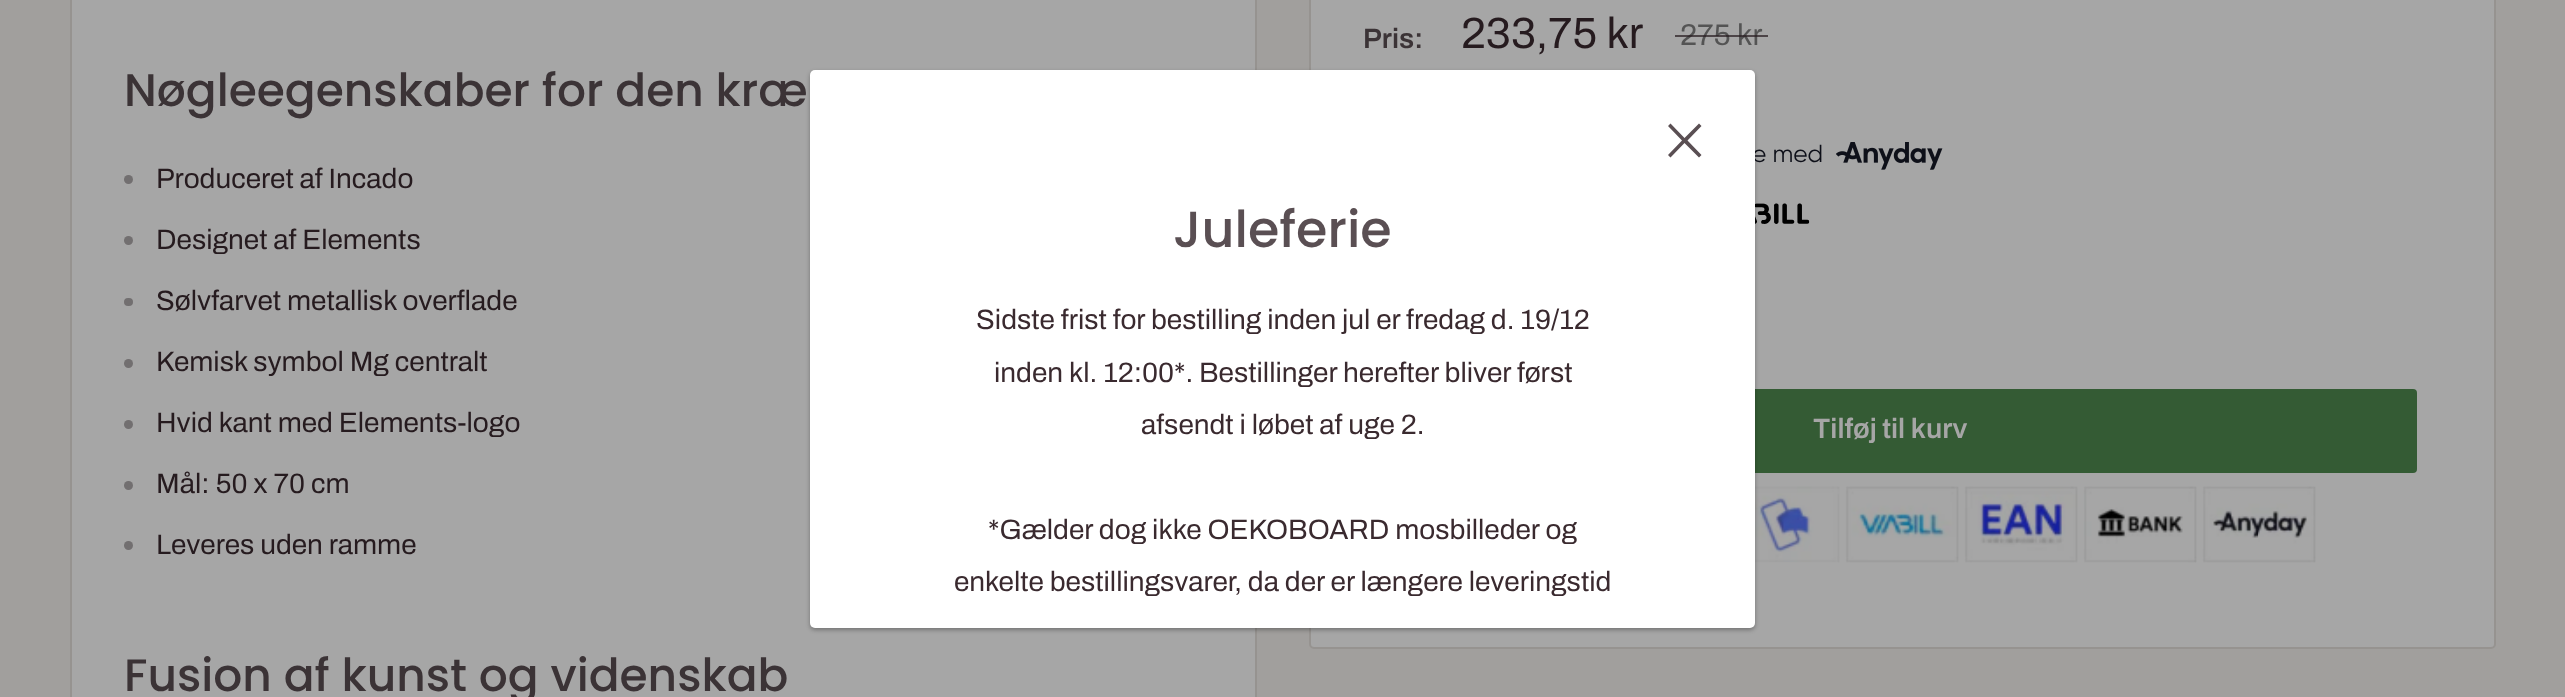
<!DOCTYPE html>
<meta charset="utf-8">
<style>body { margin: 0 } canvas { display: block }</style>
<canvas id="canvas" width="2565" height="697"></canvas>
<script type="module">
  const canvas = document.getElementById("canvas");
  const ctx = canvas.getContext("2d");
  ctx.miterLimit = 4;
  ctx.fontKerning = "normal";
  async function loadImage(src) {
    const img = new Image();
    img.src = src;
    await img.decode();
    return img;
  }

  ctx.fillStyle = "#a19f9d";
  ctx.fillRect(0, 0, 2565, 697);
  ctx.fillStyle = "#a6a6a6";
  ctx.beginPath();
  ctx.rect(71, -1, 1185, 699);
  ctx.fill();
  ctx.strokeStyle = "#969390";
  ctx.lineWidth = 2;
  ctx.stroke();
  ctx.font = "500 45.5px Poppins";
  ctx.fillStyle = "#3b3336";
  ctx.fillText("Nøgleegenskaber for den kræ", 124, 106);
  ctx.fillStyle = "#726f70";
  ctx.beginPath();
  ctx.arc(128.5, 179.5, 4.5, 0, Math.PI * 2);
  ctx.fill();
  ctx.font = "28px Archivo";
  ctx.fillStyle = "#261b1f";
  ctx.fillText("Produceret af Incado", 156, 188);
  ctx.fillStyle = "#726f70";
  ctx.beginPath();
  ctx.arc(128.5, 240.5, 4.5, 0, Math.PI * 2);
  ctx.fill();
  ctx.fillStyle = "#261b1f";
  ctx.fillText("Designet af Elements", 156, 249);
  ctx.fillStyle = "#726f70";
  ctx.beginPath();
  ctx.roundRect(124, 298, 9, 8, 4);
  ctx.fill();
  ctx.fillStyle = "#261b1f";
  ctx.fillText("Sølvfarvet metallisk overflade", 156, 310);
  ctx.fillStyle = "#726f70";
  ctx.beginPath();
  ctx.arc(128.5, 363.5, 4.5, 0, Math.PI * 2);
  ctx.fill();
  ctx.fillStyle = "#261b1f";
  ctx.fillText("Kemisk symbol Mg centralt", 156, 371);
  ctx.fillStyle = "#726f70";
  ctx.beginPath();
  ctx.arc(128.5, 424.5, 4.5, 0, Math.PI * 2);
  ctx.fill();
  ctx.fillStyle = "#261b1f";
  ctx.fillText("Hvid kant med Elements-logo", 156, 432);
  ctx.fillStyle = "#726f70";
  ctx.beginPath();
  ctx.arc(128.5, 485.5, 4.5, 0, Math.PI * 2);
  ctx.fill();
  ctx.fillStyle = "#261b1f";
  ctx.fillText("Mål: 50 x 70 cm", 156, 493);
  ctx.fillStyle = "#726f70";
  ctx.beginPath();
  ctx.arc(128.5, 545.5, 4.5, 0, Math.PI * 2);
  ctx.fill();
  ctx.fillStyle = "#261b1f";
  ctx.fillText("Leveres uden ramme", 156, 554);
  ctx.font = "500 45.5px Poppins";
  ctx.fillStyle = "#3b3336";
  ctx.fillText("Fusion af kunst og videnskab", 124, 691);
  ctx.fillStyle = "#a6a6a6";
  ctx.beginPath();
  ctx.roundRect(1310, -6, 1185, 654, 4);
  ctx.fill();
  ctx.stroke();
  ctx.font = "600 28px Archivo";
  ctx.fillStyle = "#3b3336";
  ctx.fillText("Pris:", 1363, 48);
  ctx.font = "43.75px Archivo";
  ctx.fillStyle = "#261b1f";
  ctx.fillText("233,75 kr", 1461, 48);
  ctx.font = "30px Archivo";
  ctx.fillStyle = "#545454";
  ctx.fillText("275 kr", 1680, 45);
  ctx.fillStyle = "rgba(38, 27, 31, 0.7)";
  ctx.fillRect(1675, 35, 93, 2);
  ctx.font = "24.5px Gilroy";
  ctx.fillStyle = "#0e1019";
  ctx.fillText("e med", 1752, 162);
  ctx.drawImage(await loadImage("img1.png"), 1836, 142, 107, 28);
  ctx.drawImage(await loadImage("img2.png"), 1755, 203, 55, 21);
  ctx.fillStyle = "#345b34";
  ctx.beginPath();
  ctx.roundRect(1363, 389, 1054, 84, 4);
  ctx.fill();
  ctx.font = "600 28px Archivo";
  ctx.fillStyle = "#a6a6a6";
  ctx.fillText("Tilføj til kurv", 1813, 438);
  ctx.drawImage(await loadImage("img3.png"), 1755, 486, 561, 77);
  ctx.fillStyle = "rgba(0, 0, 0, 0.3)";
  ctx.filter = "blur(2px)";
  ctx.beginPath();
  ctx.roundRect(810, 72, 945, 558, 5);
  ctx.fill();
  ctx.filter = "none";
  ctx.fillStyle = "#ffffff";
  ctx.beginPath();
  ctx.roundRect(810, 70, 945, 558, 5);
  ctx.fill();
  ctx.fillStyle = "#5a4f53";
  ctx.beginPath();
  ctx.moveTo(1684.5, 138);
  ctx.lineTo(1699, 123.5);
  ctx.lineTo(1701.5, 126);
  ctx.lineTo(1687.5, 140.5);
  ctx.lineTo(1701.5, 155);
  ctx.lineTo(1699, 157.5);
  ctx.lineTo(1684.5, 143);
  ctx.lineTo(1670.5, 157.5);
  ctx.lineTo(1668, 155);
  ctx.lineTo(1682, 140.5);
  ctx.lineTo(1668, 126);
  ctx.lineTo(1670.5, 123.5);
  ctx.closePath();
  ctx.fill("evenodd");
  ctx.font = "500 50.75px Poppins";
  ctx.fillText("Juleferie", 1173, 247);
  ctx.font = "28px Archivo";
  ctx.fillStyle = "#3a2a2f";
  ctx.fillText("Sidste frist for bestilling inden jul er fredag d. 19/12", 976, 329);
  ctx.fillText("inden kl. 12:00*. Bestillinger herefter bliver først", 994, 382);
  ctx.fillText("afsendt i løbet af uge 2.", 1141, 434);
  ctx.fillText("*Gælder dog ikke OEKOBOARD mosbilleder og", 988, 539);
  ctx.fillText("enkelte bestillingsvarer, da der er længere leveringstid", 954, 591);
</script>
